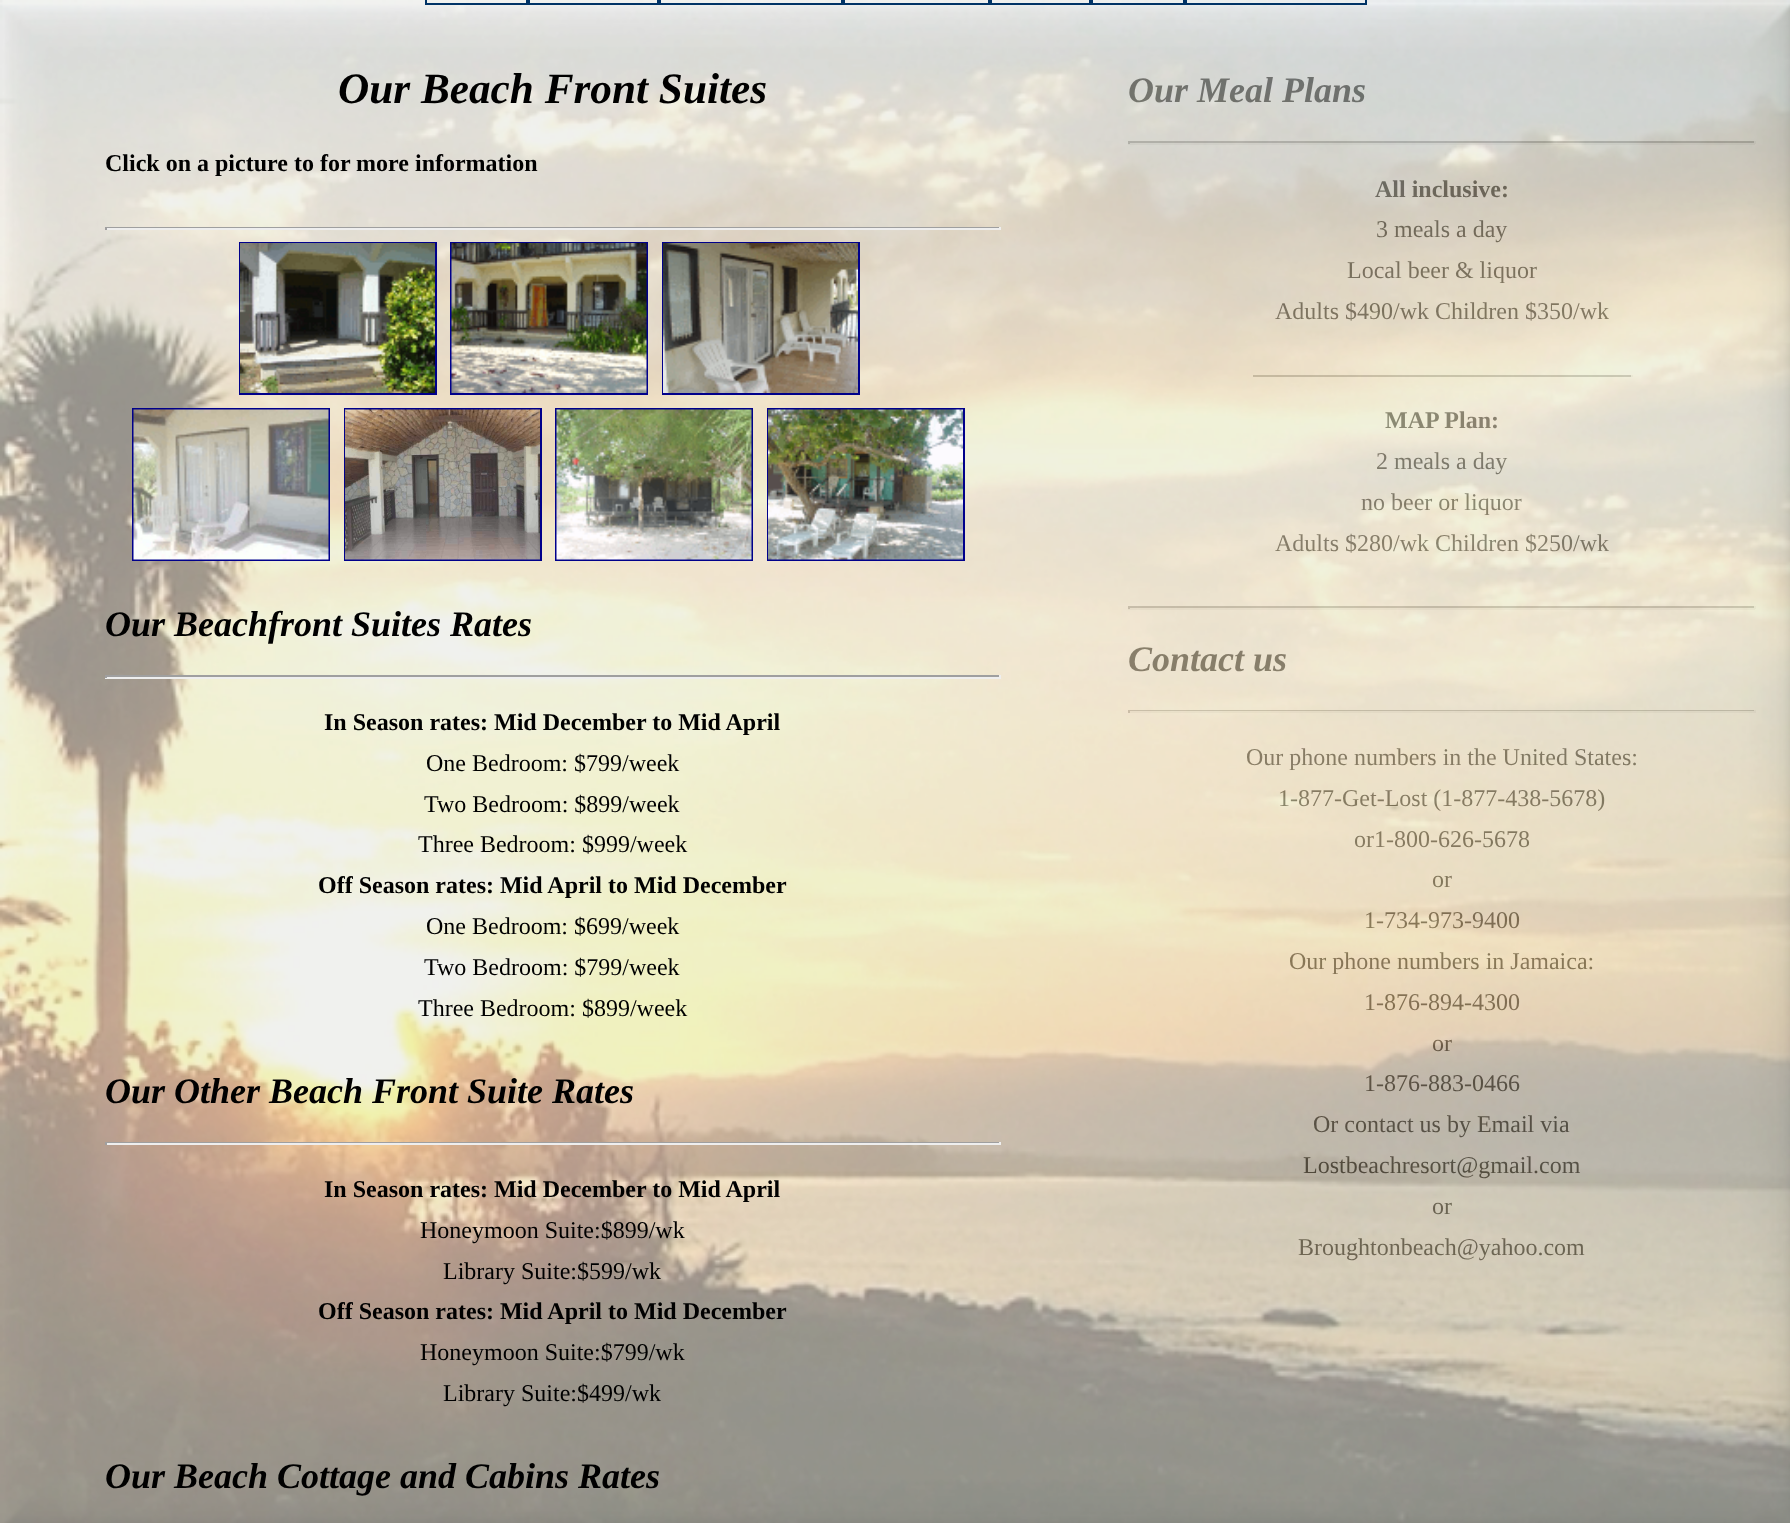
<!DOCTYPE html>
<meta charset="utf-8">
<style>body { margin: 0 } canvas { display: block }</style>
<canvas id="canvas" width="1790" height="1523"></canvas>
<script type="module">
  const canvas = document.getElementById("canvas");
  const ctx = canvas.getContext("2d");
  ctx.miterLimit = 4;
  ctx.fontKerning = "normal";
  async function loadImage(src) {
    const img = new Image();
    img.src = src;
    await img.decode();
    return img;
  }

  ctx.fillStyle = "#ffffff";
  ctx.fillRect(0, 0, 1790, 1523);
  ctx.font = "italic bold 36px Liberation Serif";
  ctx.fillStyle = "#000000";
  ctx.fillText("Our Meal Plans", 1128, 102);
  ctx.fillStyle = "#9f9f9f";
  ctx.fillRect(1128, 141, 627, 2);
  ctx.fillStyle = "#eeeeee";
  ctx.fillRect(1754, 141, 2, 3);
  ctx.fillRect(1128, 143, 627, 2);
  ctx.fillStyle = "#9f9f9f";
  ctx.fillRect(1128, 141, 2, 3);
  ctx.font = "bold 24px Liberation Serif";
  ctx.fillStyle = "#000000";
  ctx.fillText("All inclusive:", 1375, 197);
  ctx.font = "24px Liberation Serif";
  ctx.fillText("3 meals a day", 1376, 237);
  ctx.fillText("Local beer & liquor", 1347, 278);
  ctx.fillText("Adults $490/wk Children $350/wk", 1275, 319);
  ctx.fillStyle = "#9f9f9f";
  ctx.fillRect(1253, 375, 379, 2);
  ctx.fillStyle = "#eeeeee";
  ctx.fillRect(1631, 375, 2, 2);
  ctx.font = "bold 24px Liberation Serif";
  ctx.fillStyle = "#000000";
  ctx.fillText("MAP Plan:", 1385, 428);
  ctx.font = "24px Liberation Serif";
  ctx.fillText("2 meals a day", 1376, 469);
  ctx.fillText("no beer or liquor", 1361, 510);
  ctx.fillText("Adults $280/wk Children $250/wk", 1275, 551);
  ctx.fillStyle = "#9f9f9f";
  ctx.fillRect(1128, 606, 627, 2);
  ctx.fillStyle = "#eeeeee";
  ctx.fillRect(1754, 606, 2, 3);
  ctx.fillRect(1128, 608, 627, 2);
  ctx.fillStyle = "#9f9f9f";
  ctx.fillRect(1128, 606, 2, 3);
  ctx.font = "italic bold 36px Liberation Serif";
  ctx.fillStyle = "#000000";
  ctx.fillText("Contact us", 1128, 671);
  ctx.fillStyle = "#9f9f9f";
  ctx.fillRect(1128, 710, 627, 1);
  ctx.fillStyle = "#eeeeee";
  ctx.fillRect(1754, 710, 2, 3);
  ctx.fillRect(1128, 711, 627, 2);
  ctx.fillStyle = "#9f9f9f";
  ctx.fillRect(1128, 710, 2, 3);
  ctx.font = "24px Liberation Serif";
  ctx.fillStyle = "#000000";
  ctx.fillText("Our phone numbers in the United States:", 1246, 765);
  ctx.fillText("1-877-Get-Lost (1-877-438-5678)", 1278, 806);
  ctx.fillText("or1-800-626-5678", 1354, 847);
  ctx.fillText("or", 1432, 887);
  ctx.fillText("1-734-973-9400", 1364, 928);
  ctx.fillText("Our phone numbers in Jamaica:", 1289, 969);
  ctx.fillText("1-876-894-4300", 1364, 1010);
  ctx.fillText("or", 1432, 1051);
  ctx.fillText("1-876-883-0466", 1364, 1091);
  ctx.fillText("Or contact us by Email via", 1313, 1132);
  ctx.fillText("Lostbeachresort@gmail.com", 1303, 1173);
  ctx.fillText("or", 1432, 1214);
  ctx.fillText("Broughtonbeach@yahoo.com", 1298, 1255);
  ctx.drawImage(await loadImage("img1.png"), 0, 0, 1790, 1523);
  ctx.strokeStyle = "#003366";
  ctx.lineWidth = 2;
  ctx.strokeRect(426, -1, 101, 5);
  ctx.strokeRect(529, -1, 129, 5);
  ctx.strokeRect(660, -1, 182, 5);
  ctx.strokeRect(844, -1, 145, 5);
  ctx.strokeRect(991, -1, 99, 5);
  ctx.strokeRect(1092, -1, 92, 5);
  ctx.strokeRect(1186, -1, 180, 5);
  ctx.font = "italic bold 43.25px Liberation Serif";
  ctx.fillText("Our Beach Front Suites", 338, 103);
  ctx.font = "bold 24px Liberation Serif";
  ctx.fillText("Click on a picture to for more information", 105, 171);
  ctx.fillStyle = "#9f9f9f";
  ctx.fillRect(105, 227, 896, 1);
  ctx.fillStyle = "#eeeeee";
  ctx.fillRect(999, 227, 2, 3);
  ctx.fillRect(105, 228, 896, 2);
  ctx.fillStyle = "#9f9f9f";
  ctx.fillRect(105, 227, 2, 3);
  ctx.strokeStyle = "#00008b";
  ctx.strokeRect(240, 243, 196, 151);
  ctx.strokeRect(451, 243, 196, 151);
  ctx.strokeRect(663, 243, 196, 151);
  ctx.drawImage(await loadImage("img2.png"), 240, 243, 195, 150);
  ctx.drawImage(await loadImage("img3.png"), 451, 243, 196, 150);
  ctx.drawImage(await loadImage("img4.png"), 663, 243, 195, 150);
  ctx.strokeRect(133, 409, 196, 151);
  ctx.strokeRect(345, 409, 196, 151);
  ctx.strokeRect(556, 409, 196, 151);
  ctx.strokeRect(768, 409, 196, 151);
  ctx.drawImage(await loadImage("img5.png"), 133, 409, 196, 151);
  ctx.drawImage(await loadImage("img6.png"), 345, 409, 195, 151);
  ctx.drawImage(await loadImage("img7.png"), 556, 409, 196, 151);
  ctx.drawImage(await loadImage("img8.png"), 768, 409, 195, 151);
  ctx.font = "italic bold 36px Liberation Serif";
  ctx.fillStyle = "#000000";
  ctx.fillText("Our Beachfront Suites Rates", 105, 636);
  ctx.fillStyle = "#9f9f9f";
  ctx.fillRect(105, 675, 896, 2);
  ctx.fillStyle = "#eeeeee";
  ctx.fillRect(999, 675, 2, 3);
  ctx.fillRect(105, 677, 896, 2);
  ctx.fillStyle = "#9f9f9f";
  ctx.fillRect(105, 675, 2, 3);
  ctx.font = "bold 24px Liberation Serif";
  ctx.fillStyle = "#000000";
  ctx.fillText("In Season rates: Mid December to Mid April", 324, 730);
  ctx.font = "24px Liberation Serif";
  ctx.fillText("One Bedroom: $799/week", 426, 771);
  ctx.fillText("Two Bedroom: $899/week", 424, 812);
  ctx.fillText("Three Bedroom: $999/week", 418, 852);
  ctx.font = "bold 24px Liberation Serif";
  ctx.fillText("Off Season rates: Mid April to Mid December", 318, 893);
  ctx.font = "24px Liberation Serif";
  ctx.fillText("One Bedroom: $699/week", 426, 934);
  ctx.fillText("Two Bedroom: $799/week", 424, 975);
  ctx.fillText("Three Bedroom: $899/week", 418, 1016);
  ctx.font = "italic bold 36px Liberation Serif";
  ctx.fillText("Our Other Beach Front Suite Rates", 105, 1103);
  ctx.fillStyle = "#9f9f9f";
  ctx.fillRect(105, 1142, 896, 1);
  ctx.fillStyle = "#eeeeee";
  ctx.fillRect(999, 1142, 2, 3);
  ctx.fillRect(105, 1143, 896, 2);
  ctx.fillStyle = "#9f9f9f";
  ctx.fillRect(105, 1142, 2, 3);
  ctx.font = "bold 24px Liberation Serif";
  ctx.fillStyle = "#000000";
  ctx.fillText("In Season rates: Mid December to Mid April", 324, 1197);
  ctx.font = "24px Liberation Serif";
  ctx.fillText("Honeymoon Suite:$899/wk", 420, 1238);
  ctx.fillText("Library Suite:$599/wk", 443, 1279);
  ctx.font = "bold 24px Liberation Serif";
  ctx.fillText("Off Season rates: Mid April to Mid December", 318, 1319);
  ctx.font = "24px Liberation Serif";
  ctx.fillText("Honeymoon Suite:$799/wk", 420, 1360);
  ctx.fillText("Library Suite:$499/wk", 443, 1401);
  ctx.font = "italic bold 36px Liberation Serif";
  ctx.fillText("Our Beach Cottage and Cabins Rates", 105, 1488);
</script>
